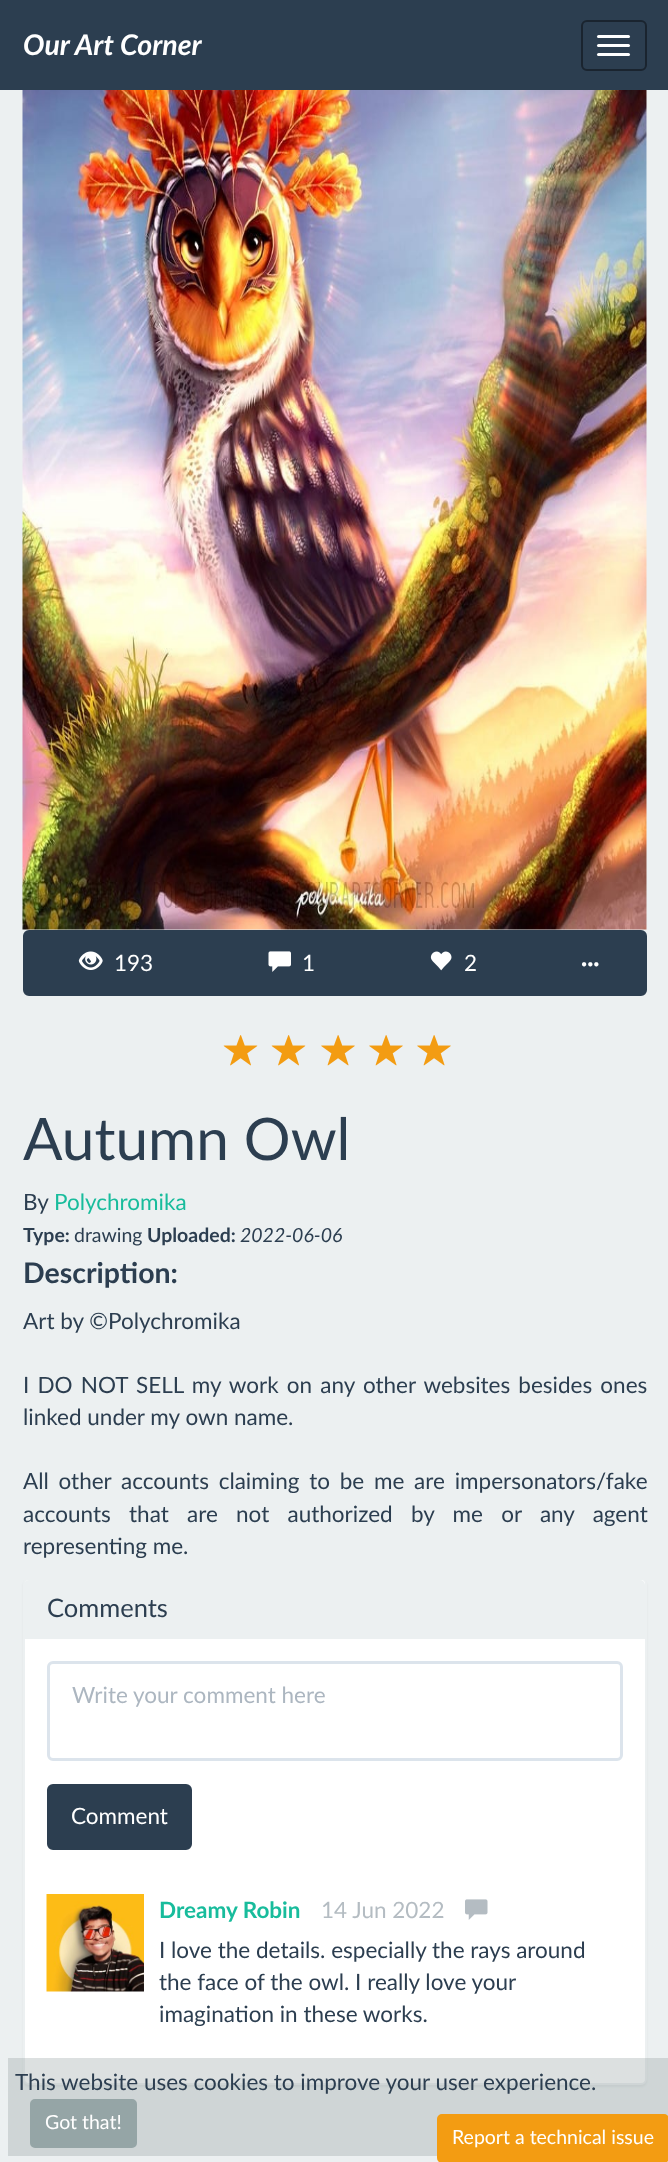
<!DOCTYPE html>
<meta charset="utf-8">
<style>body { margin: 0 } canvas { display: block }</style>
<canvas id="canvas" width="668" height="2162"></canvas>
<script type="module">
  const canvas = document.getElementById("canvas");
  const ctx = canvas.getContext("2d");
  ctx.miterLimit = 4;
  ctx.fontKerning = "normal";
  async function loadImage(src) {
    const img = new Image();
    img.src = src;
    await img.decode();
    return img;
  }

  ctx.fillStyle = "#ecf0f1";
  ctx.fillRect(0, 0, 668, 2162);
  ctx.fillStyle = "#2c3e50";
  ctx.fillRect(0, 0, 668, 90);
  ctx.font = "italic bold 28.5px Lato";
  ctx.fillStyle = "#ffffff";
  ctx.fillText("Our Art Corner", 23, 55);
  ctx.beginPath();
  ctx.roundRect(582, 21, 64, 49, 5);
  ctx.strokeStyle = "#1a242f";
  ctx.lineWidth = 2;
  ctx.stroke();
  ctx.beginPath();
  ctx.roundRect(597, 35, 33, 3, 1.5);
  ctx.fill();
  ctx.beginPath();
  ctx.roundRect(597, 44, 33, 3, 1.5);
  ctx.fill();
  ctx.beginPath();
  ctx.roundRect(597, 53, 33, 3, 1.5);
  ctx.fill();
  ctx.drawImage(await loadImage("img1.png"), 22, 90, 625, 840);
  ctx.fillStyle = "#2c3e50";
  ctx.beginPath();
  ctx.roundRect(24, 931, 185, 64, [5, 0, 0, 5]);
  ctx.fill();
  ctx.strokeStyle = "#2c3e50";
  ctx.stroke();
  ctx.drawImage(await loadImage("img2.png"), 78, 951, 25, 19);
  ctx.font = "22.5px Lato";
  ctx.fillStyle = "#ffffff";
  ctx.fillText("193", 114, 971);
  ctx.fillStyle = "#2c3e50";
  ctx.fillRect(210, 930, 324, 66);
  ctx.drawImage(await loadImage("img3.png"), 268, 951, 23, 21);
  ctx.fillStyle = "#ffffff";
  ctx.fillText("1", 302, 971);
  ctx.drawImage(await loadImage("img4.png"), 430, 951, 22, 20);
  ctx.fillText("2", 464, 971);
  ctx.fillStyle = "#2c3e50";
  ctx.beginPath();
  ctx.roundRect(535, 931, 111, 64, [0, 5, 5, 0]);
  ctx.fill();
  ctx.stroke();
  ctx.font = "bold 22.5px Lato";
  ctx.fillStyle = "#ffffff";
  ctx.fillText("···", 581, 971);
  ctx.drawImage(await loadImage("img5.png"), 223, 1035, 35, 31);
  ctx.drawImage(await loadImage("img5.png"), 271, 1035, 35, 31);
  ctx.drawImage(await loadImage("img6.png"), 321, 1035, 34, 31);
  ctx.drawImage(await loadImage("img6.png"), 369, 1035, 34, 31);
  ctx.drawImage(await loadImage("img6.png"), 417, 1035, 34, 31);
  ctx.font = "58.5px Lato";
  ctx.fillStyle = "#2c3e50";
  ctx.fillText("Autumn Owl", 23, 1160);
  ctx.font = "22.5px Lato";
  ctx.fillText("By", 23, 1210);
  ctx.fillStyle = "#18bc9c";
  ctx.fillText("Polychromika", 54, 1210);
  ctx.font = "bold 19.5px Lato";
  ctx.fillStyle = "#2c3e50";
  ctx.fillText("Type:", 23, 1242);
  ctx.font = "19.5px Lato";
  ctx.fillText("drawing", 74, 1242);
  ctx.font = "bold 19.5px Lato";
  ctx.fillText("Uploaded:", 147, 1242);
  ctx.font = "italic 19.5px Lato";
  ctx.fillText("2022-06-06", 240, 1242);
  ctx.font = "bold 28.5px Lato";
  ctx.fillText("Description:", 23, 1283);
  ctx.font = "22.5px Lato";
  ctx.fillText("Art by ©Polychromika", 23, 1329);
  ctx.wordSpacing = "2.4px";
  ctx.fillText("I DO NOT SELL my work on any other websites besides ones", 23, 1393);
  ctx.wordSpacing = "0px";
  ctx.fillText("linked under my own name.", 23, 1425);
  ctx.wordSpacing = "4px";
  ctx.fillText("All other accounts claiming to be me are impersonators/fake", 23, 1489);
  ctx.wordSpacing = "12.5px";
  ctx.fillText("accounts that are not authorized by me or any agent", 23, 1522);
  ctx.wordSpacing = "0px";
  ctx.fillText("representing me.", 23, 1554);
  ctx.fillStyle = "rgba(0, 0, 0, 0.05)";
  ctx.filter = "blur(1px)";
  ctx.beginPath();
  ctx.roundRect(23, 1580, 624, 507, 6);
  ctx.fill();
  ctx.filter = "none";
  ctx.fillStyle = "#ffffff";
  ctx.beginPath();
  ctx.roundRect(24, 1579, 622, 505, 5);
  ctx.fill();
  ctx.strokeStyle = "#ecf0f1";
  ctx.stroke();
  ctx.fillStyle = "#ecf0f1";
  ctx.beginPath();
  ctx.roundRect(24, 1580, 621, 58, [5, 5, 0, 0]);
  ctx.fill();
  ctx.fillRect(24, 1638, 621, 1);
  ctx.font = "25.5px Lato";
  ctx.fillStyle = "#2c3e50";
  ctx.fillText("Comments", 47, 1617);
  ctx.beginPath();
  ctx.roundRect(48.5, 1662.5, 573, 97, 4.5);
  ctx.strokeStyle = "#dce4ec";
  ctx.lineWidth = 3;
  ctx.stroke();
  ctx.font = "22.5px Lato";
  ctx.fillStyle = "#acb6c0";
  ctx.fillText("Write your comment here", 72, 1703);
  ctx.fillStyle = "#2c3e50";
  ctx.beginPath();
  ctx.roundRect(48, 1785, 143, 64, 5);
  ctx.fill();
  ctx.strokeStyle = "#2c3e50";
  ctx.lineWidth = 2;
  ctx.stroke();
  ctx.fillStyle = "#ffffff";
  ctx.fillText("Comment", 71, 1824);
  ctx.drawImage(await loadImage("img7.png"), 46, 1894, 98, 98);
  ctx.font = "bold 22.5px Lato";
  ctx.fillStyle = "#18bc9c";
  ctx.fillText("Dreamy Robin", 159, 1918);
  ctx.font = "22.5px Lato";
  ctx.fillStyle = "#b4bcc2";
  ctx.fillText("14 Jun 2022", 321, 1918);
  ctx.drawImage(await loadImage("img8.png"), 465, 1899, 23, 21);
  ctx.fillStyle = "#2c3e50";
  ctx.fillText("I love the details. especially the rays around", 159, 1958);
  ctx.fillText("the face of the owl. I really love your", 159, 1990);
  ctx.fillText("imagination in these works.", 159, 2022);
  ctx.fillStyle = "rgba(140, 152, 152, 0.3)";
  ctx.fillRect(8, 2058, 660, 98);
  ctx.fillStyle = "#2c3e50";
  ctx.fillText("This website uses cookies to improve your user experience.", 15, 2090);
  ctx.fillStyle = "#95a5a6";
  ctx.beginPath();
  ctx.roundRect(31, 2100, 105, 47, 4);
  ctx.fill();
  ctx.strokeStyle = "#95a5a6";
  ctx.stroke();
  ctx.font = "19.5px Lato";
  ctx.fillStyle = "#ffffff";
  ctx.fillText("Got that!", 45, 2129);
  ctx.fillStyle = "#f39c12";
  ctx.beginPath();
  ctx.roundRect(438, 2115, 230, 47, 4);
  ctx.fill();
  ctx.strokeStyle = "#f39c12";
  ctx.stroke();
  ctx.fillStyle = "#ffffff";
  ctx.fillText("Report a technical issue", 452, 2144);
</script>
